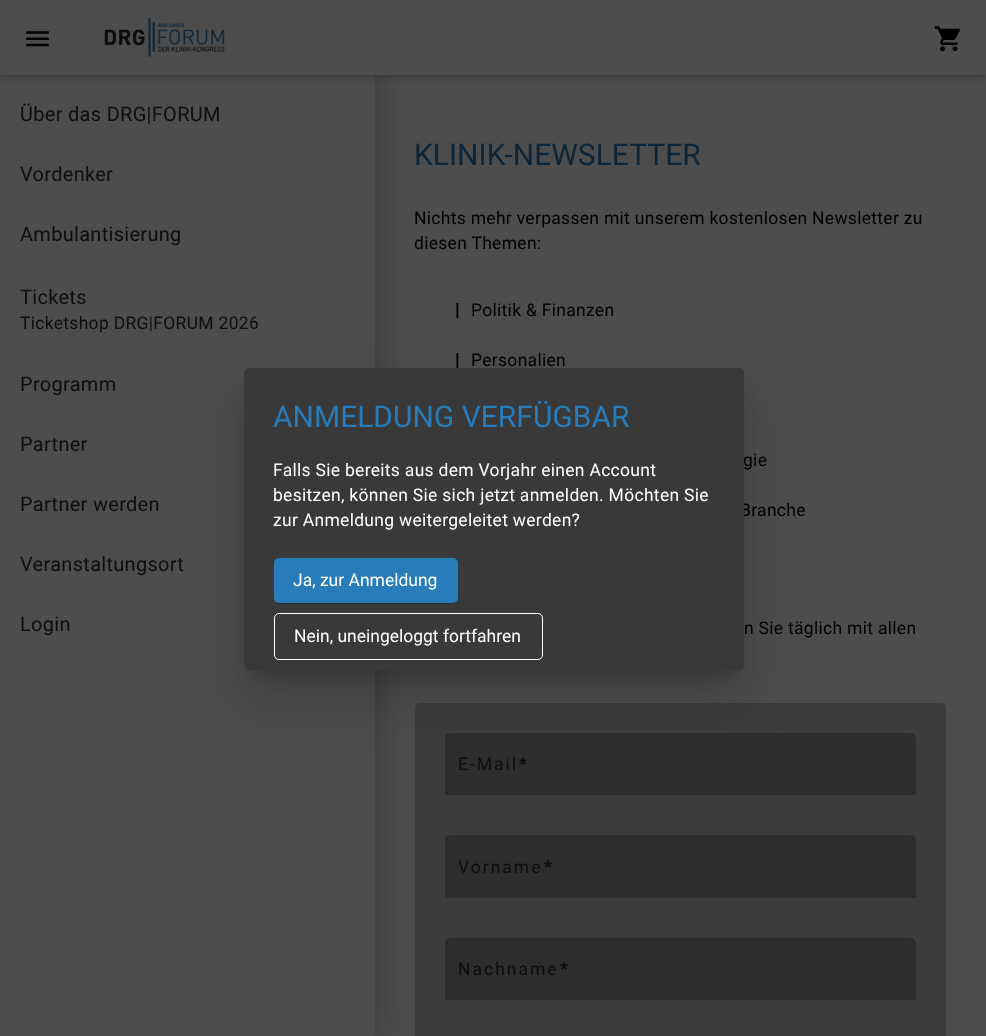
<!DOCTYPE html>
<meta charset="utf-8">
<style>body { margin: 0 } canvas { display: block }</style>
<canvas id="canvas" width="986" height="1036"></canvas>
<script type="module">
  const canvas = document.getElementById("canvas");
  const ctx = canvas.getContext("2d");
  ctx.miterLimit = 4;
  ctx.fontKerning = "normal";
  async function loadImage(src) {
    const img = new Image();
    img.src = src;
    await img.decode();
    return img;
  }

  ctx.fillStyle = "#4d4d4d";
  ctx.fillRect(0, 0, 986, 1036);
  ctx.fillStyle = "rgba(0, 0, 0, 0.33)";
  ctx.filter = "blur(5px)";
  ctx.beginPath();
  ctx.rect(0, 0, 986, 75);
  ctx.fill();
  ctx.filter = "none";
  ctx.fillStyle = "#3d3d3d";
  ctx.beginPath();
  ctx.roundRect(415, 703, 531, 333, [5, 5, 0, 0]);
  ctx.fill();
  ctx.save();
  ctx.beginPath();
  ctx.rect(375, 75, 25, 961);
  ctx.clip();
  ctx.fillStyle = "rgba(0, 0, 0, 0.27)";
  ctx.filter = "blur(17.5px)";
  ctx.beginPath();
  ctx.rect(0, 0, 375, 1036);
  ctx.fill();
  ctx.filter = "none";
  ctx.restore();
  ctx.fillStyle = "#4d4d4d";
  ctx.fillRect(0, 0, 986, 75);
  ctx.drawImage(await loadImage("img1.png"), 26, 31, 23, 16);
  ctx.drawImage(await loadImage("img2.png"), 104, 17, 121, 40);
  ctx.drawImage(await loadImage("img3.png"), 935, 26, 25, 26);
  ctx.letterSpacing = "0.3px";
  ctx.font = "20px Roboto";
  ctx.fillStyle = "#0e0e0e";
  ctx.fillText("Über das DRG|FORUM", 20, 121);
  ctx.fillText("Vordenker", 20, 181);
  ctx.fillText("Ambulantisierung", 20, 241);
  ctx.fillText("Tickets", 20, 304);
  ctx.font = "17.5px Roboto";
  ctx.fillText("Ticketshop DRG|FORUM 2026", 20, 329);
  ctx.font = "20px Roboto";
  ctx.fillText("Programm", 20, 391);
  ctx.fillText("Partner", 20, 451);
  ctx.fillText("Partner werden", 20, 511);
  ctx.fillText("Veranstaltungsort", 20, 571);
  ctx.fillText("Login", 20, 631);
  ctx.letterSpacing = "0px";
  ctx.font = "30px Roboto";
  ctx.fillStyle = "#0c2538";
  ctx.fillText("KLINIK-NEWSLETTER", 414, 165);
  ctx.letterSpacing = "0.3px";
  ctx.font = "17.5px Roboto";
  ctx.fillStyle = "#000000";
  ctx.fillText("Nichts mehr verpassen mit unserem kostenlosen Newsletter zu", 414, 224);
  ctx.fillText("diesen Themen:", 414, 249);
  ctx.font = "bold 17.5px Roboto";
  ctx.fillText("|", 455, 316);
  ctx.font = "17.5px Roboto";
  ctx.fillText("Politik & Finanzen", 471, 316);
  ctx.font = "bold 17.5px Roboto";
  ctx.fillText("|", 455, 366);
  ctx.font = "17.5px Roboto";
  ctx.fillText("Personalien", 471, 366);
  ctx.fillText("gie", 743, 466);
  ctx.fillText("Branche", 740, 516);
  ctx.fillText("n Sie täglich mit allen", 744, 634);
  ctx.fillStyle = "#2d2d2d";
  ctx.beginPath();
  ctx.roundRect(445, 733, 471, 63, [5, 5, 0, 0]);
  ctx.fill();
  ctx.letterSpacing = "2px";
  ctx.fillStyle = "#0e0e0e";
  ctx.fillText("E-Mail", 458, 770);
  ctx.font = "bold 17.5px Roboto";
  ctx.fillText("*", 519, 770);
  ctx.fillStyle = "#3d3d3d";
  ctx.fillRect(445, 795, 471, 1);
  ctx.fillStyle = "#2d2d2d";
  ctx.beginPath();
  ctx.roundRect(445, 835, 471, 64, [5, 5, 0, 0]);
  ctx.fill();
  ctx.font = "17.5px Roboto";
  ctx.fillStyle = "#0e0e0e";
  ctx.fillText("Vorname", 458, 873);
  ctx.font = "bold 17.5px Roboto";
  ctx.fillText("*", 544, 873);
  ctx.fillStyle = "#3d3d3d";
  ctx.fillRect(445, 898, 471, 1);
  ctx.fillStyle = "#2d2d2d";
  ctx.beginPath();
  ctx.roundRect(445, 938, 471, 63, [5, 5, 0, 0]);
  ctx.fill();
  ctx.font = "17.5px Roboto";
  ctx.fillStyle = "#0e0e0e";
  ctx.fillText("Nachname", 458, 975);
  ctx.font = "bold 17.5px Roboto";
  ctx.fillText("*", 560, 975);
  ctx.fillStyle = "#3d3d3d";
  ctx.fillRect(445, 1000, 471, 1);
  ctx.fillStyle = "rgba(0, 0, 0, 0.14)";
  ctx.filter = "blur(24px)";
  ctx.beginPath();
  ctx.roundRect(240, 394, 508, 310, 9);
  ctx.fill();
  ctx.filter = "none";
  ctx.fillStyle = "rgba(0, 0, 0, 0.2)";
  ctx.filter = "blur(9.5px)";
  ctx.beginPath();
  ctx.rect(253, 390, 482, 285);
  ctx.fill();
  ctx.filter = "none";
  ctx.fillStyle = "#393939";
  ctx.beginPath();
  ctx.roundRect(244, 368, 500, 302, 5);
  ctx.fill();
  ctx.letterSpacing = "0px";
  ctx.font = "30px Roboto";
  ctx.fillStyle = "#277cb9";
  ctx.fillText("ANMELDUNG VERFÜGBAR", 273, 427);
  ctx.letterSpacing = "0.3px";
  ctx.font = "17.5px Roboto";
  ctx.fillStyle = "#ffffff";
  ctx.fillText("Falls Sie bereits aus dem Vorjahr einen Account", 273, 476);
  ctx.fillText("besitzen, können Sie sich jetzt anmelden. Möchten Sie", 273, 501);
  ctx.fillText("zur Anmeldung weitergeleitet werden?", 273, 526);
  ctx.fillStyle = "rgba(0, 0, 0, 0.2)";
  ctx.filter = "blur(0.5px)";
  ctx.beginPath();
  ctx.roundRect(276, 564, 179, 40, 2.5);
  ctx.fill();
  ctx.filter = "none";
  ctx.fillStyle = "#277cb9";
  ctx.beginPath();
  ctx.roundRect(274, 558, 184, 45, 5);
  ctx.fill();
  ctx.letterSpacing = "0px";
  ctx.fillStyle = "#ffffff";
  ctx.fillText("Ja, zur Anmeldung", 293, 586);
  ctx.beginPath();
  ctx.roundRect(274.5, 613.5, 268, 46, 4.5);
  ctx.strokeStyle = "#ffffff";
  ctx.stroke();
  ctx.fillText("Nein, uneingeloggt fortfahren", 294, 642);
</script>
